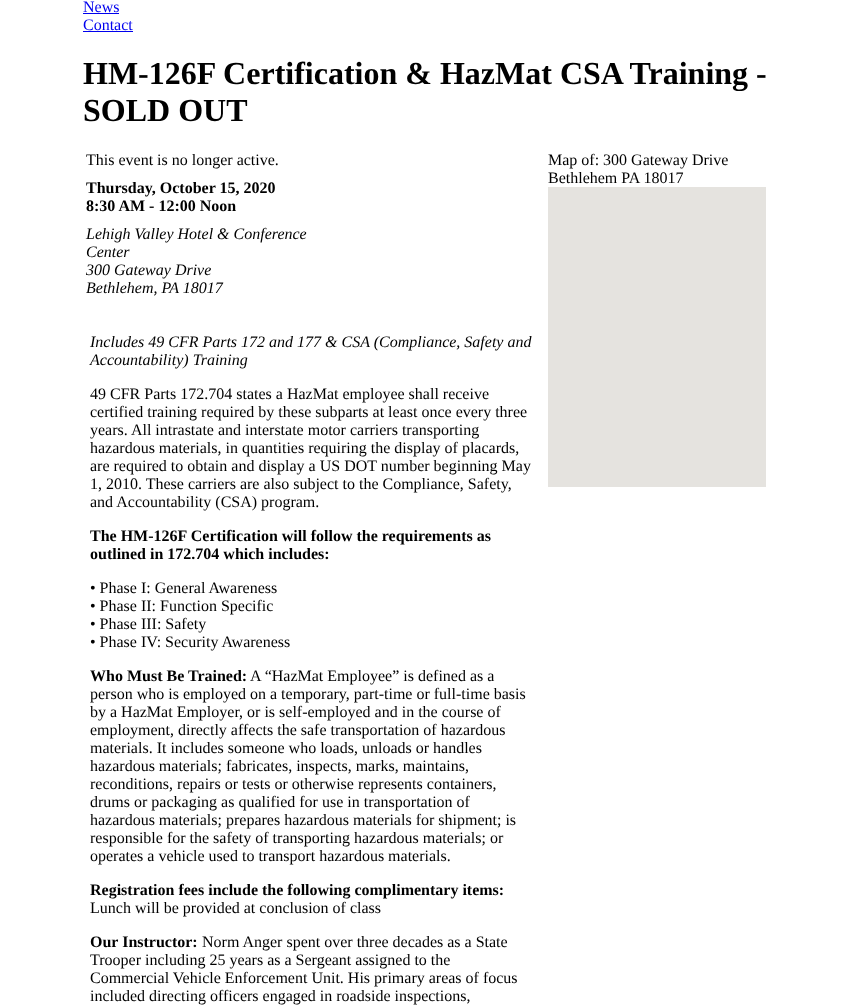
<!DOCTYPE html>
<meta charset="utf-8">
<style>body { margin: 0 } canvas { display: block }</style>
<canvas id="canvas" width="856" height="1008"></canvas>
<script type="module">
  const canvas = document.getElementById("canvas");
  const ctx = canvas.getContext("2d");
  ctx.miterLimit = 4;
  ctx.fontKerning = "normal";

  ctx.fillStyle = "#ffffff";
  ctx.fillRect(0, 0, 856, 1008);
  ctx.font = "16px Liberation Serif";
  ctx.fillStyle = "#0000ee";
  ctx.fillText("News", 83, 12);
  ctx.fillRect(83, 13, 36, 1);
  ctx.fillText("Contact", 83, 30);
  ctx.fillRect(83, 31, 50, 1);
  ctx.font = "bold 32px Liberation Serif";
  ctx.fillStyle = "#000000";
  ctx.fillText("HM-126F Certification & HazMat CSA Training -", 83, 84);
  ctx.fillText("SOLD OUT", 83, 121);
  ctx.font = "16px Liberation Serif";
  ctx.fillText("This event is no longer active.", 86, 165);
  ctx.font = "bold 16px Liberation Serif";
  ctx.fillText("Thursday, October 15, 2020", 86, 193);
  ctx.fillText("8:30 AM - 12:00 Noon", 86, 211);
  ctx.font = "italic 16px Liberation Serif";
  ctx.fillText("Lehigh Valley Hotel & Conference", 86, 239);
  ctx.fillText("Center", 86, 257);
  ctx.fillText("300 Gateway Drive", 86, 275);
  ctx.fillText("Bethlehem, PA 18017", 86, 293);
  ctx.fillText("Includes 49 CFR Parts 172 and 177 & CSA (Compliance, Safety and", 90, 347);
  ctx.fillText("Accountability) Training", 90, 365);
  ctx.font = "16px Liberation Serif";
  ctx.fillText("49 CFR Parts 172.704 states a HazMat employee shall receive", 90, 399);
  ctx.fillText("certified training required by these subparts at least once every three", 90, 417);
  ctx.fillText("years. All intrastate and interstate motor carriers transporting", 90, 435);
  ctx.fillText("hazardous materials, in quantities requiring the display of placards,", 90, 453);
  ctx.fillText("are required to obtain and display a US DOT number beginning May", 90, 471);
  ctx.fillText("1, 2010. These carriers are also subject to the Compliance, Safety,", 90, 489);
  ctx.fillText("and Accountability (CSA) program.", 90, 507);
  ctx.font = "bold 16px Liberation Serif";
  ctx.fillText("The HM-126F Certification will follow the requirements as", 90, 541);
  ctx.fillText("outlined in 172.704 which includes:", 90, 559);
  ctx.font = "16px Liberation Serif";
  ctx.fillText("• Phase I: General Awareness", 90, 593);
  ctx.fillText("• Phase II: Function Specific", 90, 611);
  ctx.fillText("• Phase III: Safety", 90, 629);
  ctx.fillText("• Phase IV: Security Awareness", 90, 647);
  ctx.font = "bold 16px Liberation Serif";
  ctx.fillText("Who Must Be Trained:", 90, 681);
  ctx.font = "16px Liberation Serif";
  ctx.fillText("A “HazMat Employee” is defined as a", 250, 681);
  ctx.fillText("person who is employed on a temporary, part-time or full-time basis", 90, 699);
  ctx.fillText("by a HazMat Employer, or is self-employed and in the course of", 90, 717);
  ctx.fillText("employment, directly affects the safe transportation of hazardous", 90, 735);
  ctx.fillText("materials. It includes someone who loads, unloads or handles", 90, 753);
  ctx.fillText("hazardous materials; fabricates, inspects, marks, maintains,", 90, 771);
  ctx.fillText("reconditions, repairs or tests or otherwise represents containers,", 90, 789);
  ctx.fillText("drums or packaging as qualified for use in transportation of", 90, 807);
  ctx.fillText("hazardous materials; prepares hazardous materials for shipment; is", 90, 825);
  ctx.fillText("responsible for the safety of transporting hazardous materials; or", 90, 843);
  ctx.fillText("operates a vehicle used to transport hazardous materials.", 90, 861);
  ctx.font = "bold 16px Liberation Serif";
  ctx.fillText("Registration fees include the following complimentary items:", 90, 895);
  ctx.font = "16px Liberation Serif";
  ctx.fillText("Lunch will be provided at conclusion of class", 90, 913);
  ctx.font = "bold 16px Liberation Serif";
  ctx.fillText("Our Instructor:", 90, 947);
  ctx.font = "16px Liberation Serif";
  ctx.fillText("Norm Anger spent over three decades as a State", 202, 947);
  ctx.fillText("Trooper including 25 years as a Sergeant assigned to the", 90, 965);
  ctx.fillText("Commercial Vehicle Enforcement Unit. His primary areas of focus", 90, 983);
  ctx.fillText("included directing officers engaged in roadside inspections,", 90, 1001);
  ctx.fillText("Map of: 300 Gateway Drive", 548, 165);
  ctx.fillText("Bethlehem PA 18017", 548, 183);
  ctx.fillStyle = "#e5e3df";
  ctx.fillRect(548, 187, 218, 300);
</script>
